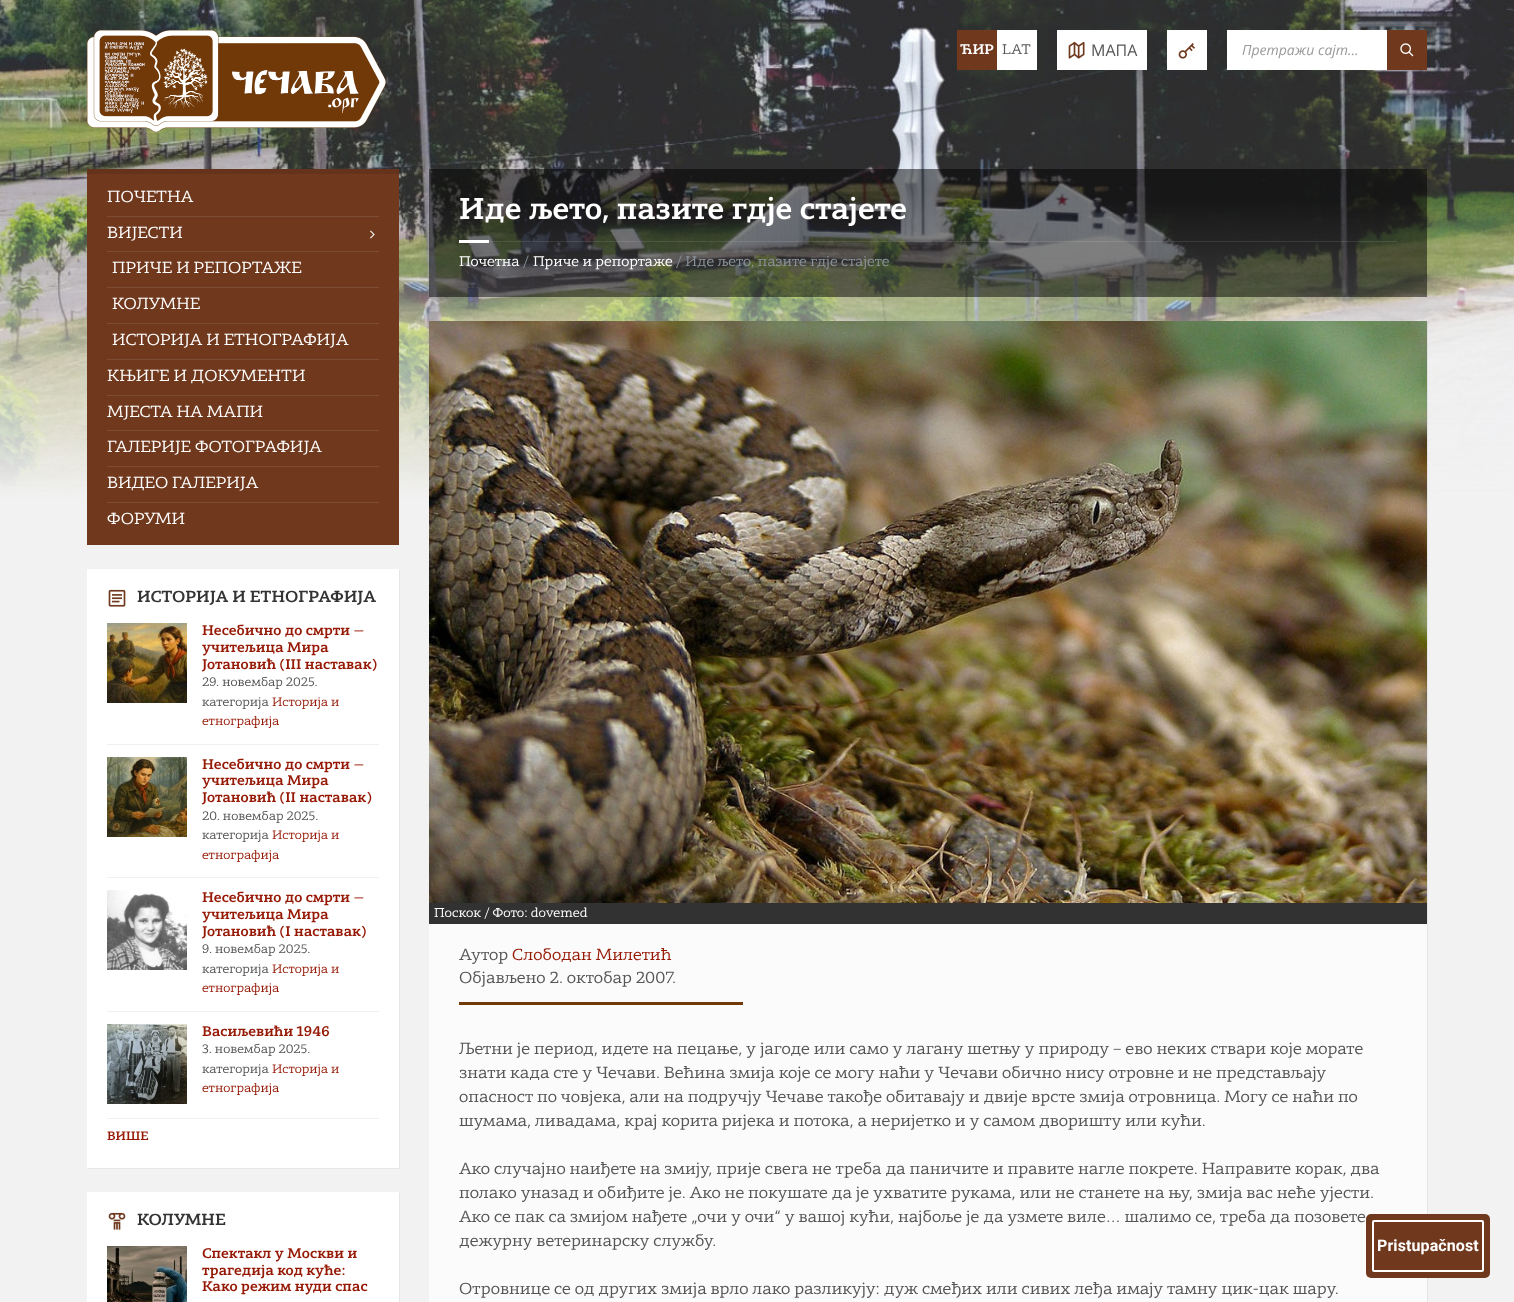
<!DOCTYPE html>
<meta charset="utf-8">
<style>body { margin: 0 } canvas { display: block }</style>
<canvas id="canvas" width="1514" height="1302"></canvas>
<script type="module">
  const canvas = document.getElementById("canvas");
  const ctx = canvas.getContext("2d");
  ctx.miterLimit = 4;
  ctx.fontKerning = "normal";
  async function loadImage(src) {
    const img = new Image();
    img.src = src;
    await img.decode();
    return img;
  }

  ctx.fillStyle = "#f2f2f2";
  ctx.fillRect(0, 0, 1514, 1302);
  ctx.drawImage(await loadImage("img1.png"), 0, 0, 1514, 500);
  ctx.drawImage(await loadImage("img2.png"), 87, 30, 299, 103);
  ctx.fillStyle = "#70391e";
  ctx.fillRect(957, 30, 40, 40);
  ctx.font = "bold 14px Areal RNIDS";
  ctx.fillStyle = "#ffffff";
  ctx.fillText("ЋИР", 960, 54);
  ctx.fillRect(997, 30, 40, 40);
  ctx.font = "14px Areal RNIDS";
  ctx.fillStyle = "#565656";
  ctx.fillText("LAT", 1002, 54);
  ctx.fillStyle = "#ffffff";
  ctx.fillRect(1057, 30, 90, 40);
  ctx.drawImage(await loadImage("img3.png"), 1068, 41, 17, 18);
  ctx.font = "16px Open Sans";
  ctx.fillStyle = "#565656";
  ctx.fillText("МАПА", 1091, 56);
  ctx.fillStyle = "#ffffff";
  ctx.fillRect(1167, 30, 40, 40);
  ctx.drawImage(await loadImage("img4.png"), 1178, 43, 17, 16);
  ctx.fillRect(1227, 30, 160, 40);
  ctx.font = "italic 14px Open Sans";
  ctx.fillStyle = "#9a9a9a";
  ctx.fillText("Претражи сајт...", 1242, 55);
  ctx.fillStyle = "#70391e";
  ctx.fillRect(1387, 30, 40, 40);
  ctx.drawImage(await loadImage("img5.png"), 1400, 43, 14, 14);
  ctx.fillRect(87, 174, 312, 371);
  ctx.fillStyle = "#65331b";
  ctx.fillRect(87, 169, 312, 5);
  ctx.font = "16px Areal RNIDS";
  ctx.fillStyle = "#ffffff";
  ctx.fillText("ПOЧЕТНА", 107, 202);
  ctx.fillStyle = "#7e4d35";
  ctx.fillRect(107, 216, 272, 1);
  ctx.fillStyle = "#ffffff";
  ctx.fillText("ВИЈЕСТИ", 107, 238);
  ctx.drawImage(await loadImage("img6.png"), 370, 230, 5, 9);
  ctx.fillStyle = "#7e4d35";
  ctx.fillRect(107, 251, 272, 1);
  ctx.fillStyle = "#ffffff";
  ctx.fillText("ПРИЧЕ И РЕПОРТАЖЕ", 112, 273);
  ctx.fillStyle = "#7e4d35";
  ctx.fillRect(107, 287, 272, 1);
  ctx.fillStyle = "#ffffff";
  ctx.fillText("КОЛУМНЕ", 112, 309);
  ctx.fillStyle = "#7e4d35";
  ctx.fillRect(107, 323, 272, 1);
  ctx.fillStyle = "#ffffff";
  ctx.fillText("ИСТОРИЈА И ЕТНОГРАФИЈА", 112, 345);
  ctx.fillStyle = "#7e4d35";
  ctx.fillRect(107, 359, 272, 1);
  ctx.fillStyle = "#ffffff";
  ctx.fillText("КЊИГЕ И ДОКУМЕНТИ", 107, 381);
  ctx.fillStyle = "#7e4d35";
  ctx.fillRect(107, 395, 272, 1);
  ctx.fillStyle = "#ffffff";
  ctx.fillText("МЈЕСТА НА МАПИ", 107, 417);
  ctx.fillStyle = "#7e4d35";
  ctx.fillRect(107, 430, 272, 1);
  ctx.fillStyle = "#ffffff";
  ctx.fillText("ГАЛЕРИЈЕ ФОТОГРАФИЈА", 107, 452);
  ctx.fillStyle = "#7e4d35";
  ctx.fillRect(107, 466, 272, 1);
  ctx.fillStyle = "#ffffff";
  ctx.fillText("ВИДЕО ГАЛЕРИЈА", 107, 488);
  ctx.fillStyle = "#7e4d35";
  ctx.fillRect(107, 502, 272, 1);
  ctx.fillStyle = "#ffffff";
  ctx.fillText("ФОРУМИ", 107, 524);
  ctx.fillStyle = "#e6e6e6";
  ctx.beginPath();
  ctx.moveTo(88, 1168);
  ctx.lineTo(88, 1169);
  ctx.lineTo(400, 1169);
  ctx.lineTo(400, 570);
  ctx.lineTo(399, 570);
  ctx.lineTo(399, 1168);
  ctx.closePath();
  ctx.fill();
  ctx.fillStyle = "#ffffff";
  ctx.fillRect(87, 569, 312, 599);
  ctx.drawImage(await loadImage("img7.png"), 108, 589, 18, 18);
  ctx.font = "bold 16px Areal RNIDS";
  ctx.fillStyle = "#333333";
  ctx.fillText("ИСТОРИЈА И ЕТНОГРАФИЈА", 137, 602);
  ctx.drawImage(await loadImage("img8.png"), 107, 623, 80, 80);
  ctx.font = "bold 14px Areal RNIDS";
  ctx.fillStyle = "#961906";
  ctx.fillText("Несебично до смрти —", 202, 635);
  ctx.fillText("учитељица Мира", 202, 652);
  ctx.fillText("Јотановић (III наставак)", 202, 669);
  ctx.font = "12.25px Areal RNIDS";
  ctx.fillStyle = "#565656";
  ctx.fillText("29. новембар 2025.", 202, 686);
  ctx.fillText("категорија", 202, 706);
  ctx.fillStyle = "#961906";
  ctx.fillText("Историја и", 272, 706);
  ctx.fillText("етнографија", 202, 725);
  ctx.fillStyle = "#f0f0f0";
  ctx.fillRect(107, 744, 272, 1);
  ctx.drawImage(await loadImage("img9.png"), 107, 757, 80, 80);
  ctx.font = "bold 14px Areal RNIDS";
  ctx.fillStyle = "#961906";
  ctx.fillText("Несебично до смрти —", 202, 769);
  ctx.fillText("учитељица Мира", 202, 785);
  ctx.fillText("Јотановић (II наставак)", 202, 802);
  ctx.font = "12.25px Areal RNIDS";
  ctx.fillStyle = "#565656";
  ctx.fillText("20. новембар 2025.", 202, 820);
  ctx.fillText("категорија", 202, 839);
  ctx.fillStyle = "#961906";
  ctx.fillText("Историја и", 272, 839);
  ctx.fillText("етнографија", 202, 859);
  ctx.fillStyle = "#f0f0f0";
  ctx.fillRect(107, 877, 272, 1);
  ctx.drawImage(await loadImage("img10.png"), 107, 890, 80, 80);
  ctx.font = "bold 14px Areal RNIDS";
  ctx.fillStyle = "#961906";
  ctx.fillText("Несебично до смрти —", 202, 902);
  ctx.fillText("учитељица Мира", 202, 919);
  ctx.fillText("Јотановић (I наставак)", 202, 936);
  ctx.font = "12.25px Areal RNIDS";
  ctx.fillStyle = "#565656";
  ctx.fillText("9. новембар 2025.", 202, 953);
  ctx.fillText("категорија", 202, 973);
  ctx.fillStyle = "#961906";
  ctx.fillText("Историја и", 272, 973);
  ctx.fillText("етнографија", 202, 992);
  ctx.fillStyle = "#f0f0f0";
  ctx.fillRect(107, 1011, 272, 1);
  ctx.drawImage(await loadImage("img11.png"), 107, 1024, 80, 80);
  ctx.font = "bold 14px Areal RNIDS";
  ctx.fillStyle = "#961906";
  ctx.fillText("Васиљевићи 1946", 202, 1036);
  ctx.font = "12.25px Areal RNIDS";
  ctx.fillStyle = "#565656";
  ctx.fillText("3. новембар 2025.", 202, 1053);
  ctx.fillText("категорија", 202, 1073);
  ctx.fillStyle = "#961906";
  ctx.fillText("Историја и", 272, 1073);
  ctx.fillText("етнографија", 202, 1092);
  ctx.fillStyle = "#f0f0f0";
  ctx.fillRect(107, 1118, 272, 1);
  ctx.font = "bold 12.25px Areal RNIDS";
  ctx.fillStyle = "#961906";
  ctx.fillText("ВИШЕ", 107, 1140);
  ctx.fillStyle = "#e6e6e6";
  ctx.beginPath();
  ctx.moveTo(88, 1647);
  ctx.lineTo(88, 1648);
  ctx.lineTo(400, 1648);
  ctx.lineTo(400, 1193);
  ctx.lineTo(399, 1193);
  ctx.lineTo(399, 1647);
  ctx.closePath();
  ctx.fill();
  ctx.fillStyle = "#ffffff";
  ctx.fillRect(87, 1192, 312, 110);
  ctx.drawImage(await loadImage("img12.png"), 108, 1212, 18, 18);
  ctx.font = "bold 16px Areal RNIDS";
  ctx.fillStyle = "#333333";
  ctx.fillText("КОЛУМНЕ", 137, 1225);
  ctx.drawImage(await loadImage("img13.png"), 107, 1246, 80, 56);
  ctx.font = "bold 14px Areal RNIDS";
  ctx.fillStyle = "#961906";
  ctx.fillText("Спектакл у Москви и", 202, 1258);
  ctx.fillText("трагедија код куће:", 202, 1275);
  ctx.fillText("Како режим нуди спас", 202, 1291);
  ctx.fillStyle = "rgba(0, 0, 0, 0.5)";
  ctx.fillRect(429, 169, 998, 128);
  ctx.font = "bold 30px Areal RNIDS";
  ctx.fillStyle = "#ffffff";
  ctx.fillText("Иде љето, пазите гдје стајете", 459, 219);
  ctx.fillStyle = "rgba(255, 255, 255, 0.1)";
  ctx.fillRect(489, 241, 908, 1);
  ctx.fillStyle = "#ffffff";
  ctx.fillRect(459, 240, 30, 3);
  ctx.font = "14px Areal RNIDS";
  ctx.fillText("Почетна", 459, 266);
  ctx.fillStyle = "#8a949b";
  ctx.fillText("/", 523, 266);
  ctx.fillStyle = "#ffffff";
  ctx.fillText("Приче и репортаже", 533, 266);
  ctx.fillStyle = "#8a949b";
  ctx.fillText("/ Иде љето, пазите гдје стајете", 676, 266);
  ctx.fillStyle = "rgba(0, 0, 0, 0.05)";
  ctx.beginPath();
  ctx.moveTo(430, 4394);
  ctx.lineTo(430, 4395);
  ctx.lineTo(1428, 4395);
  ctx.lineTo(1428, 322);
  ctx.lineTo(1427, 322);
  ctx.lineTo(1427, 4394);
  ctx.closePath();
  ctx.fill();
  ctx.fillStyle = "rgba(255, 255, 255, 0.68)";
  ctx.fillRect(429, 924, 998, 378);
  ctx.drawImage(await loadImage("img14.png"), 429, 321, 998, 582);
  ctx.fillStyle = "#323232";
  ctx.fillRect(429, 903, 998, 21);
  ctx.font = "12.75px Areal RNIDS";
  ctx.fillStyle = "#ffffff";
  ctx.fillText("Поскок / Фото: dovemed", 434, 917);
  ctx.font = "16px Areal RNIDS";
  ctx.fillStyle = "#565656";
  ctx.fillText("Аутор", 459, 960);
  ctx.fillStyle = "#961906";
  ctx.fillText("Слободан Милетић", 512, 960);
  ctx.fillStyle = "#565656";
  ctx.fillText("Објављено 2. октобар 2007.", 459, 983);
  ctx.fillStyle = "#713907";
  ctx.fillRect(459, 1002, 284, 3);
  ctx.fillStyle = "#565656";
  ctx.fillText("Љетни је период, идете на пецање, у јагоде или само у лагану шетњу у природу – ево неких ствари које морате", 459, 1054);
  ctx.fillText("знати када сте у Чечави. Већина змија које се могу наћи у Чечави обично нису отровне и не представљају", 459, 1078);
  ctx.fillText("опасност по човјека, али на подручју Чечаве такође обитавају и двије врсте змија отровница. Могу се наћи по", 459, 1102);
  ctx.fillText("шумама, ливадама, крај корита ријека и потока, а неријетко и у самом дворишту или кући.", 459, 1126);
  ctx.fillText("Ако случајно наиђете на змију, прије свега не треба да паничите и правите нагле покрете. Направите корак, два", 459, 1174);
  ctx.fillText("полако уназад и обиђите је. Ако не покушате да је ухватите рукама, или не станете на њу, змија вас неће ујести.", 459, 1198);
  ctx.fillText("Ако се пак са змијом нађете „очи у очи“ у вашој кући, најбоље је да узмете виле… шалимо се, треба да позовете", 459, 1222);
  ctx.fillText("дежурну ветеринарску службу.", 459, 1246);
  ctx.fillText("Отровнице се од других змија врло лако разликују: дуж смеђих или сивих леђа имају тамну цик-цак шару.", 459, 1294);
  ctx.fillStyle = "#70391e";
  ctx.beginPath();
  ctx.roundRect(1366, 1214, 124, 64, 5);
  ctx.fill();
  ctx.beginPath();
  ctx.roundRect(1373, 1221, 110, 50, 1);
  ctx.strokeStyle = "#ffffff";
  ctx.lineWidth = 2;
  ctx.stroke();
  ctx.letterSpacing = "0.1px";
  ctx.font = "bold 16px Roboto";
  ctx.fillStyle = "#ffffff";
  ctx.fillText("Pristupačnost", 1377, 1251);
</script>
